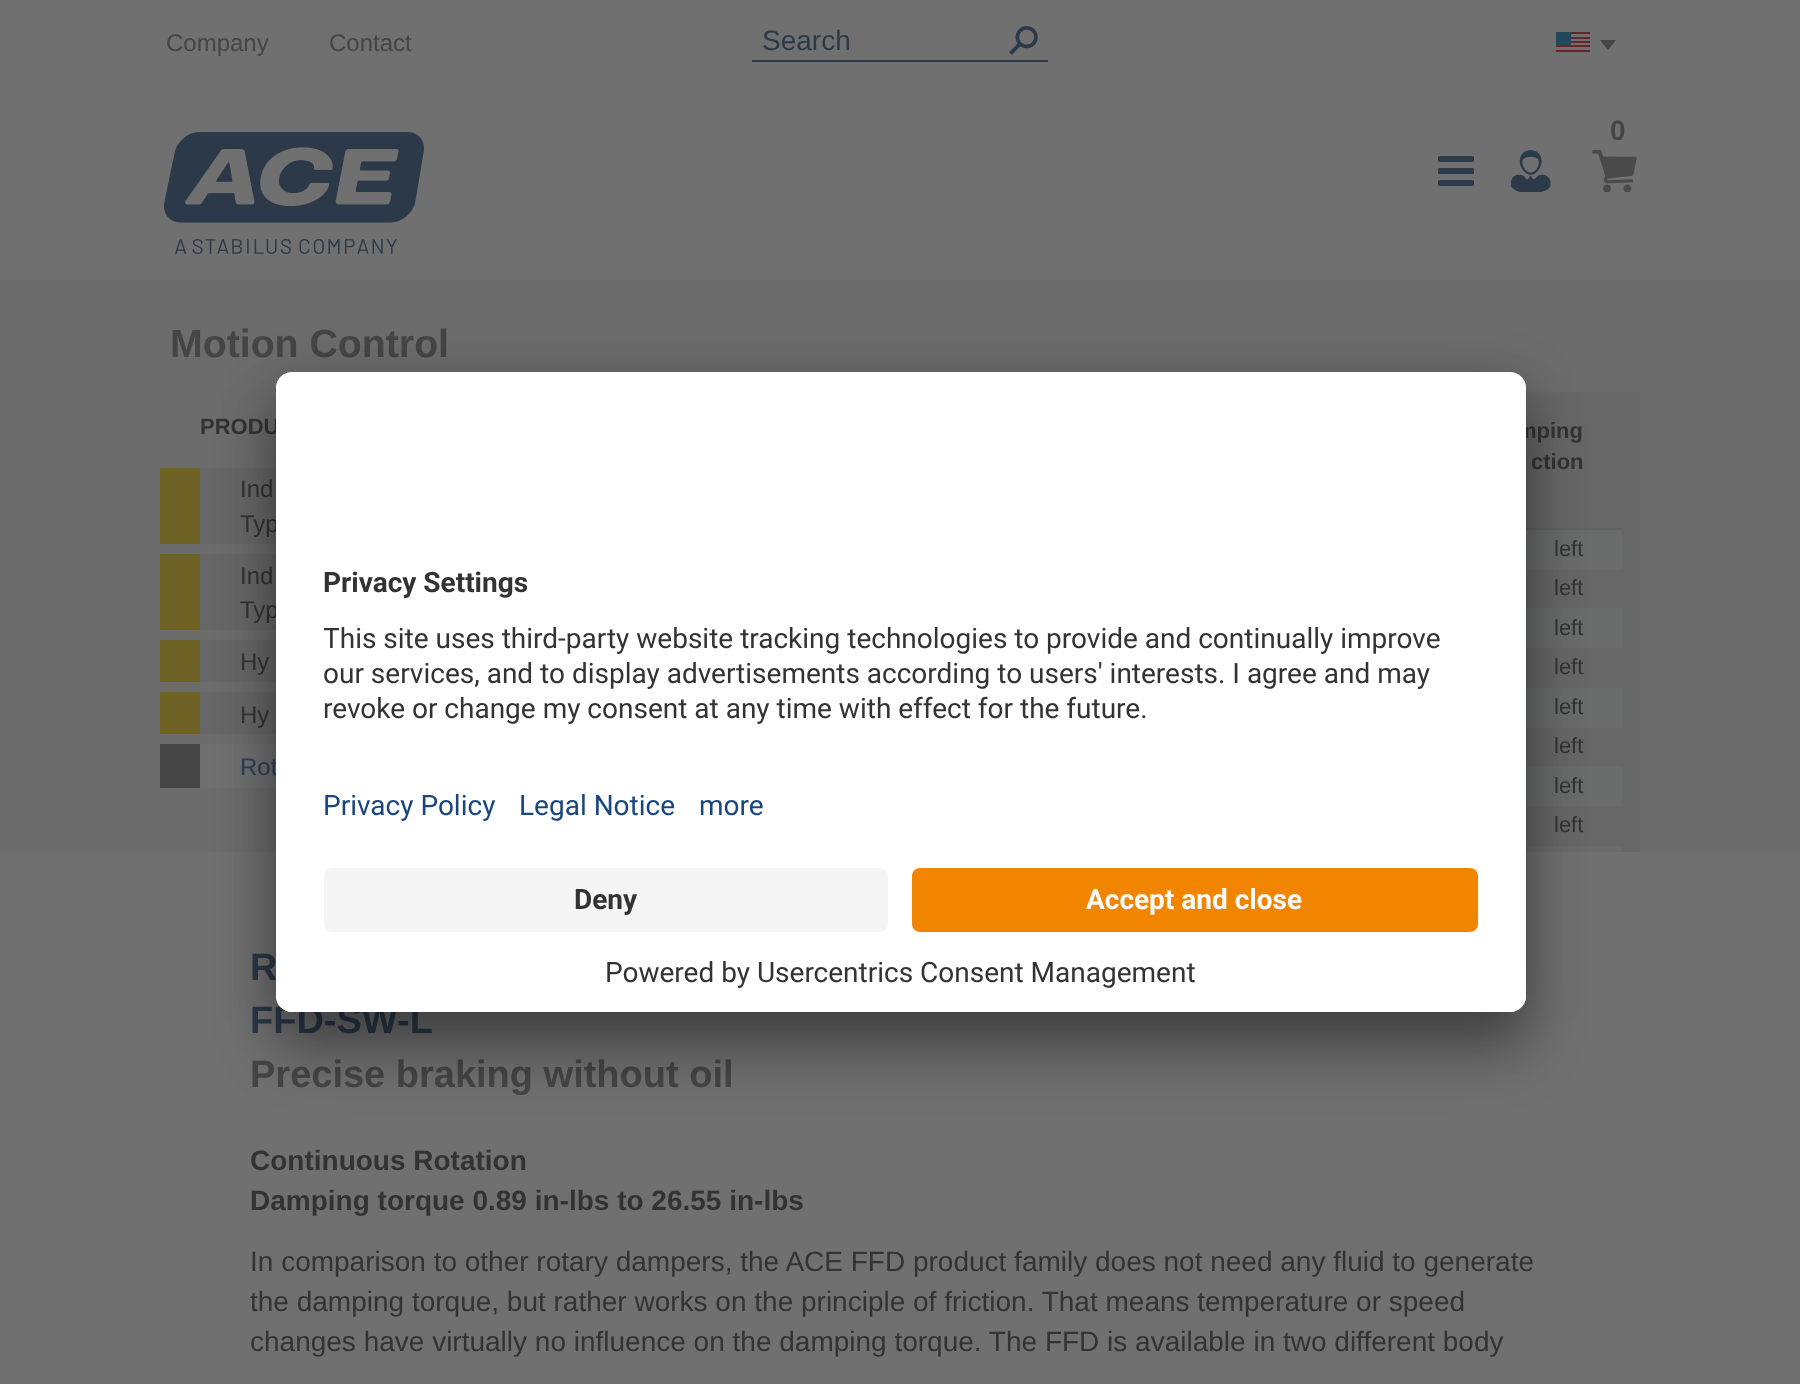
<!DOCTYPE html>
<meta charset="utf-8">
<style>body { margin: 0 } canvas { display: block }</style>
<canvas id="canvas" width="1800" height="1384"></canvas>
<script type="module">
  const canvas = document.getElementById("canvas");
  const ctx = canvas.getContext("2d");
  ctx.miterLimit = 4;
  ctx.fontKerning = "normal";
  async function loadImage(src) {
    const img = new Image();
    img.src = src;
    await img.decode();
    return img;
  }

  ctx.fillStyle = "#707070";
  ctx.fillRect(0, 0, 1800, 1384);
  ctx.font = "24px Liberation Sans";
  ctx.fillStyle = "#454545";
  ctx.fillText("Company", 166, 51);
  ctx.fillText("Contact", 329, 51);
  ctx.fillStyle = "#2b3949";
  ctx.fillRect(752, 60, 296, 2);
  ctx.font = "28px Liberation Sans";
  ctx.fillText("Search", 762, 50);
  ctx.drawImage(await loadImage("img1.png"), 1009, 26, 29, 29);
  ctx.drawImage(await loadImage("img2.png"), 1556, 32, 34, 22);
  ctx.fillStyle = "#454545";
  ctx.beginPath();
  ctx.moveTo(1600, 40);
  ctx.lineTo(1616, 40);
  ctx.lineTo(1608, 50);
  ctx.closePath();
  ctx.fill();
  ctx.drawImage(await loadImage("img3.png"), 164, 132, 260, 122);
  ctx.drawImage(await loadImage("img4.png"), 1592, 150, 45, 42);
  ctx.font = "bold 28px Liberation Sans";
  ctx.fillText("0", 1610, 140);
  ctx.drawImage(await loadImage("img5.png"), 1438, 156, 36, 30);
  ctx.drawImage(await loadImage("img6.png"), 1510, 150, 41, 42);
  ctx.fillStyle = "#6c6c6c";
  ctx.fillRect(0, 280, 1800, 572);
  ctx.font = "bold 39.25px Liberation Sans";
  ctx.fillStyle = "#454545";
  ctx.fillText("Motion Control", 170, 357);
  ctx.font = "bold 22px Liberation Sans";
  ctx.fillStyle = "#333333";
  ctx.fillText("PRODU", 200, 434);
  ctx.fillStyle = "#676767";
  ctx.fillRect(200, 468, 76, 76);
  ctx.fillStyle = "#6e6224";
  ctx.fillRect(160, 468, 40, 76);
  ctx.font = "24px Liberation Sans";
  ctx.fillStyle = "#333333";
  ctx.fillText("Ind", 240, 497);
  ctx.fillText("Typ", 240, 532);
  ctx.fillStyle = "#676767";
  ctx.fillRect(200, 554, 76, 76);
  ctx.fillStyle = "#6e6224";
  ctx.fillRect(160, 554, 40, 76);
  ctx.fillStyle = "#333333";
  ctx.fillText("Ind", 240, 584);
  ctx.fillText("Typ", 240, 618);
  ctx.fillStyle = "#676767";
  ctx.fillRect(200, 640, 76, 42);
  ctx.fillStyle = "#6e6224";
  ctx.fillRect(160, 640, 40, 42);
  ctx.fillStyle = "#333333";
  ctx.fillText("Hy", 240, 670);
  ctx.fillStyle = "#676767";
  ctx.fillRect(200, 692, 76, 42);
  ctx.fillStyle = "#6e6224";
  ctx.fillRect(160, 692, 40, 42);
  ctx.fillStyle = "#333333";
  ctx.fillText("Hy", 240, 723);
  ctx.fillStyle = "#707070";
  ctx.fillRect(200, 744, 76, 44);
  ctx.fillStyle = "#454545";
  ctx.fillRect(160, 744, 40, 44);
  ctx.fillStyle = "#274056";
  ctx.fillText("Rot", 240, 775);
  ctx.fillStyle = "#676767";
  ctx.fillRect(1526, 392, 114, 460);
  ctx.font = "bold 22px Liberation Sans";
  ctx.fillStyle = "#333333";
  ctx.fillText("mping", 1517, 438);
  ctx.fillText("ction", 1531, 469);
  ctx.fillStyle = "#626262";
  ctx.fillRect(1526, 528, 96, 2);
  ctx.fillStyle = "#6a6b6b";
  ctx.fillRect(1526, 530, 96, 40);
  ctx.font = "22px Liberation Sans";
  ctx.fillStyle = "#333333";
  ctx.fillText("left", 1554, 556);
  ctx.fillText("left", 1554, 595);
  ctx.fillStyle = "#6a6b6b";
  ctx.fillRect(1526, 608, 96, 40);
  ctx.fillStyle = "#333333";
  ctx.fillText("left", 1554, 635);
  ctx.fillText("left", 1554, 674);
  ctx.fillStyle = "#6a6b6b";
  ctx.fillRect(1526, 688, 96, 40);
  ctx.fillStyle = "#333333";
  ctx.fillText("left", 1554, 714);
  ctx.fillText("left", 1554, 753);
  ctx.fillStyle = "#6a6b6b";
  ctx.fillRect(1526, 766, 96, 40);
  ctx.fillStyle = "#333333";
  ctx.fillText("left", 1554, 793);
  ctx.fillText("left", 1554, 832);
  ctx.fillStyle = "#6a6b6b";
  ctx.fillRect(1526, 846, 96, 6);
  ctx.font = "bold 38px Liberation Sans";
  ctx.fillStyle = "#2b3949";
  ctx.fillText("R", 250, 980);
  ctx.fillText("FFD-SW-L", 250, 1033);
  ctx.fillStyle = "#454545";
  ctx.fillText("Precise braking without oil", 250, 1087);
  ctx.font = "bold 28px Liberation Sans";
  ctx.fillStyle = "#333333";
  ctx.fillText("Continuous Rotation", 250, 1170);
  ctx.fillText("Damping torque 0.89 in-lbs to 26.55 in-lbs", 250, 1210);
  ctx.font = "28px Liberation Sans";
  ctx.fillText("In comparison to other rotary dampers, the ACE FFD product family does not need any fluid to generate", 250, 1271);
  ctx.fillText("the damping torque, but rather works on the principle of friction. That means temperature or speed", 250, 1311);
  ctx.fillText("changes have virtually no influence on the damping torque. The FFD is available in two different body", 250, 1351);
  ctx.fillStyle = "rgba(0, 0, 0, 0.3)";
  ctx.filter = "blur(28px)";
  ctx.beginPath();
  ctx.roundRect(276, 412, 1250, 640, 16);
  ctx.fill();
  ctx.filter = "none";
  ctx.fillStyle = "rgba(0, 0, 0, 0.22)";
  ctx.filter = "blur(26px)";
  ctx.beginPath();
  ctx.roundRect(276, 382, 1250, 640, 16);
  ctx.fill();
  ctx.filter = "none";
  ctx.fillStyle = "#ffffff";
  ctx.beginPath();
  ctx.roundRect(276, 372, 1250, 640, 16);
  ctx.fill();
  ctx.save();
  ctx.beginPath();
  ctx.roundRect(276, 372, 1250, 640, 16);
  ctx.clip();
  ctx.beginPath();
  ctx.roundRect(276, 372, 1250, 480, [16, 16, 0, 0]);
  ctx.clip();
  ctx.fillRect(276, 374, 1250, 478);
  ctx.restore();
  ctx.font = "bold 28px Roboto";
  ctx.fillStyle = "#333333";
  ctx.fillText("Privacy Settings", 323, 592);
  ctx.save();
  ctx.beginPath();
  ctx.rect(324, 614, 1154, 122);
  ctx.clip();
  ctx.font = "28px Roboto";
  ctx.fillText("This site uses third-party website tracking technologies to provide and continually improve", 323, 648);
  ctx.restore();
  ctx.font = "28px Roboto";
  ctx.fillText("our services, and to display advertisements according to users' interests. I agree and may", 323, 683);
  ctx.fillText("revoke or change my consent at any time with effect for the future.", 323, 718);
  ctx.fillStyle = "#19467d";
  ctx.fillText("Privacy Policy", 323, 815);
  ctx.fillText("Legal Notice", 519, 815);
  ctx.fillText("more", 699, 815);
  ctx.fillStyle = "#ffffff";
  ctx.beginPath();
  ctx.roundRect(276, 852, 1250, 160, [0, 0, 16, 16]);
  ctx.fill();
  ctx.fillStyle = "#f5f5f5";
  ctx.beginPath();
  ctx.roundRect(324, 868, 564, 64, 8);
  ctx.fill();
  ctx.font = "bold 28px Roboto";
  ctx.fillStyle = "#333333";
  ctx.fillText("Deny", 574, 909);
  ctx.fillStyle = "#f18500";
  ctx.beginPath();
  ctx.roundRect(912, 868, 566, 64, 8);
  ctx.fill();
  ctx.fillStyle = "#fafafa";
  ctx.fillText("Accept and close", 1086, 909);
  ctx.font = "28px Roboto";
  ctx.fillStyle = "#333333";
  ctx.fillText("Powered by Usercentrics Consent Management", 605, 982);
</script>
